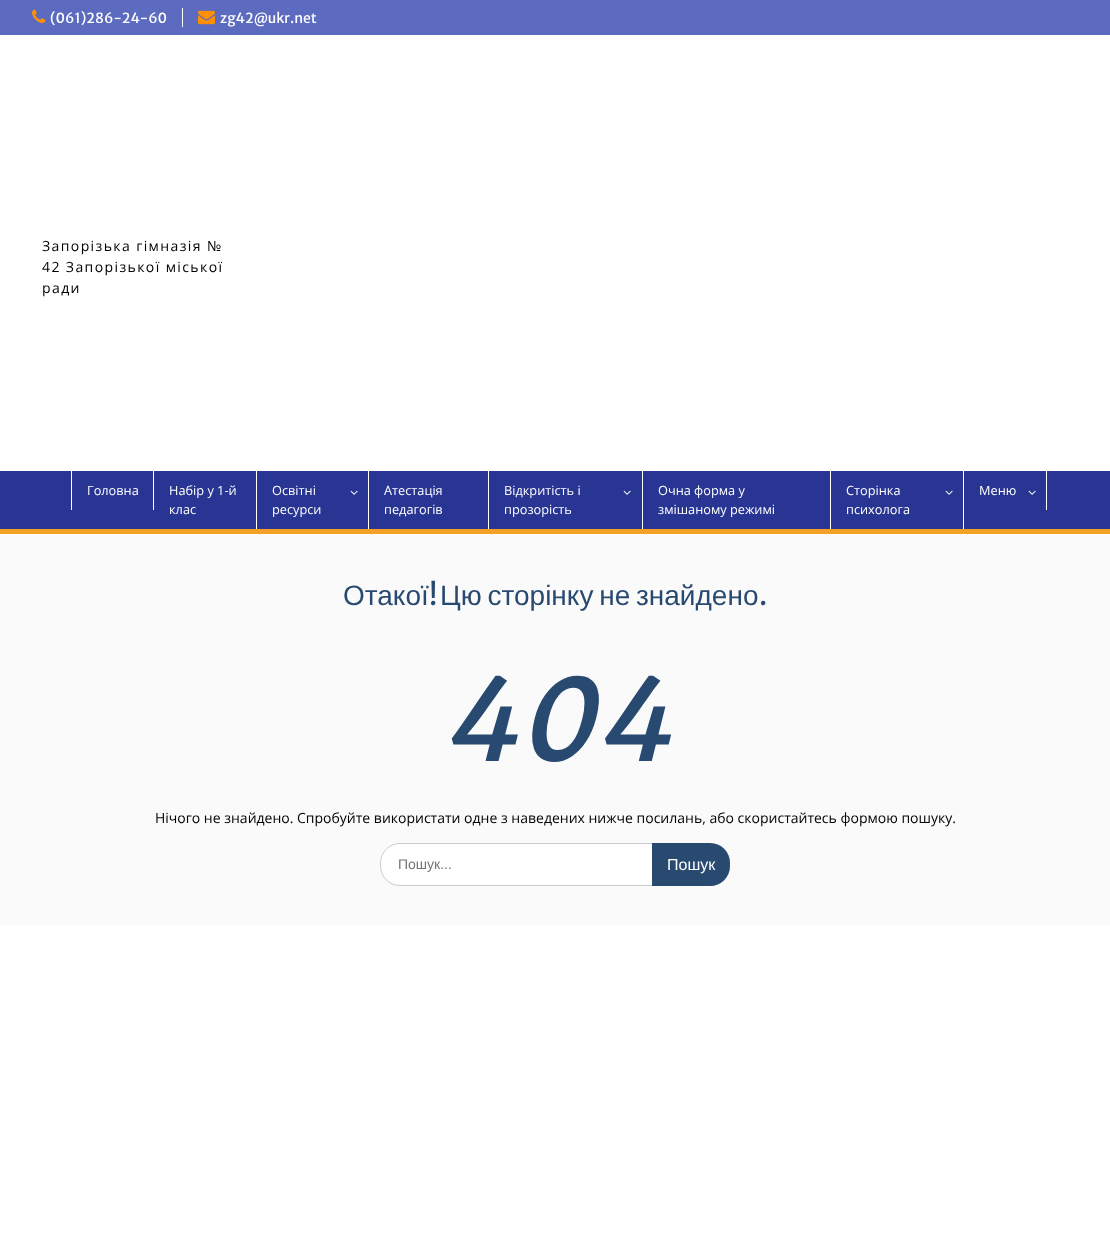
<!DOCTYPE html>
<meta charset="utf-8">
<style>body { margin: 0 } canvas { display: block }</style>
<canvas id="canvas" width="1110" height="1245"></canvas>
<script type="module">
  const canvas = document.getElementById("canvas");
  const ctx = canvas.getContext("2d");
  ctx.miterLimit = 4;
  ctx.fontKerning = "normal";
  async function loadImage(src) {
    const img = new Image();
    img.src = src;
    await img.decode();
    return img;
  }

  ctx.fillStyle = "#ffffff";
  ctx.fillRect(0, 0, 1110, 1245);
  ctx.fillStyle = "#5c6bc0";
  ctx.fillRect(0, 0, 1110, 35);
  ctx.drawImage(await loadImage("img1.png"), 32, 9, 14, 14);
  ctx.font = "14px Merriweather Sans";
  ctx.fillStyle = "#ffffff";
  ctx.fillText("(061)286-24-60", 50, 23);
  ctx.fillRect(182, 8, 1, 19);
  ctx.drawImage(await loadImage("img2.png"), 198, 10, 17, 15);
  ctx.fillText("zg42@ukr.net", 220, 23);
  ctx.letterSpacing = "1.4px";
  ctx.font = "14px Open Sans";
  ctx.fillStyle = "#000000";
  ctx.fillText("Запорізька гімназія №", 42, 251);
  ctx.fillText("42 Запорізької міської", 42, 272);
  ctx.fillText("ради", 42, 293);
  ctx.fillStyle = "#283593";
  ctx.fillRect(0, 471, 1110, 58);
  ctx.fillStyle = "#f4a024";
  ctx.fillRect(0, 529, 1110, 5);
  ctx.fillStyle = "#ffffff";
  ctx.fillRect(153, 471, 1, 39);
  ctx.fillRect(71, 471, 1, 39);
  ctx.letterSpacing = "0px";
  ctx.font = "12.75px Open Sans";
  ctx.fillText("Головна", 87, 495);
  ctx.fillRect(256, 471, 1, 58);
  ctx.fillText("Набір у 1-й", 169, 495);
  ctx.fillText("клас", 169, 514);
  ctx.fillRect(368, 471, 1, 58);
  ctx.fillText("Освітні", 272, 495);
  ctx.drawImage(await loadImage("img3.png"), 350, 490, 8, 5);
  ctx.fillText("ресурси", 272, 514);
  ctx.fillRect(488, 471, 1, 58);
  ctx.fillText("Атестація", 384, 495);
  ctx.fillText("педагогів", 384, 514);
  ctx.fillRect(642, 471, 1, 58);
  ctx.fillText("Відкритість і", 504, 495);
  ctx.drawImage(await loadImage("img3.png"), 623, 490, 8, 5);
  ctx.fillText("прозорість", 504, 514);
  ctx.fillRect(830, 471, 1, 58);
  ctx.fillText("Очна форма у", 658, 495);
  ctx.fillText("змішаному режимі", 658, 514);
  ctx.fillRect(963, 471, 1, 58);
  ctx.fillText("Сторінка", 846, 495);
  ctx.drawImage(await loadImage("img3.png"), 945, 490, 8, 5);
  ctx.fillText("психолога", 846, 514);
  ctx.fillRect(1046, 471, 1, 39);
  ctx.fillText("Меню", 979, 495);
  ctx.drawImage(await loadImage("img3.png"), 1028, 490, 8, 5);
  ctx.fillStyle = "#fafafa";
  ctx.fillRect(0, 534, 1110, 392);
  ctx.font = "28px Liberation Sans";
  ctx.fillStyle = "#294a70";
  ctx.fillText("Отакої", 343, 605);
  ctx.font = "28px Merriweather Sans";
  ctx.fillText("!", 429, 605);
  ctx.wordSpacing = "-2px";
  ctx.font = "28px Liberation Sans";
  ctx.fillText("Цю сторінку не знайдено", 440, 605);
  ctx.wordSpacing = "0px";
  ctx.font = "28px Merriweather Sans";
  ctx.fillText(".", 759, 605);
  ctx.font = "italic 113px Merriweather Sans";
  ctx.fillText("404", 440, 761);
  ctx.font = "14px Open Sans";
  ctx.fillStyle = "#000000";
  ctx.fillText("Нічого не знайдено. Спробуйте використати одне з наведених нижче посилань, або скористайтесь формою пошуку.", 155, 823);
  ctx.fillStyle = "#ffffff";
  ctx.beginPath();
  ctx.roundRect(380.5, 843.5, 349, 42, 19.5);
  ctx.fill();
  ctx.strokeStyle = "#cccccc";
  ctx.stroke();
  ctx.font = "14px Liberation Sans";
  ctx.fillStyle = "#757575";
  ctx.fillText("Пошук...", 398, 869);
  ctx.fillStyle = "#294a70";
  ctx.beginPath();
  ctx.roundRect(652, 843, 78, 43, [0, 20, 20, 0]);
  ctx.fill();
  ctx.font = "16px Liberation Sans";
  ctx.fillStyle = "#ffffff";
  ctx.fillText("Пошук", 667, 870);
</script>
